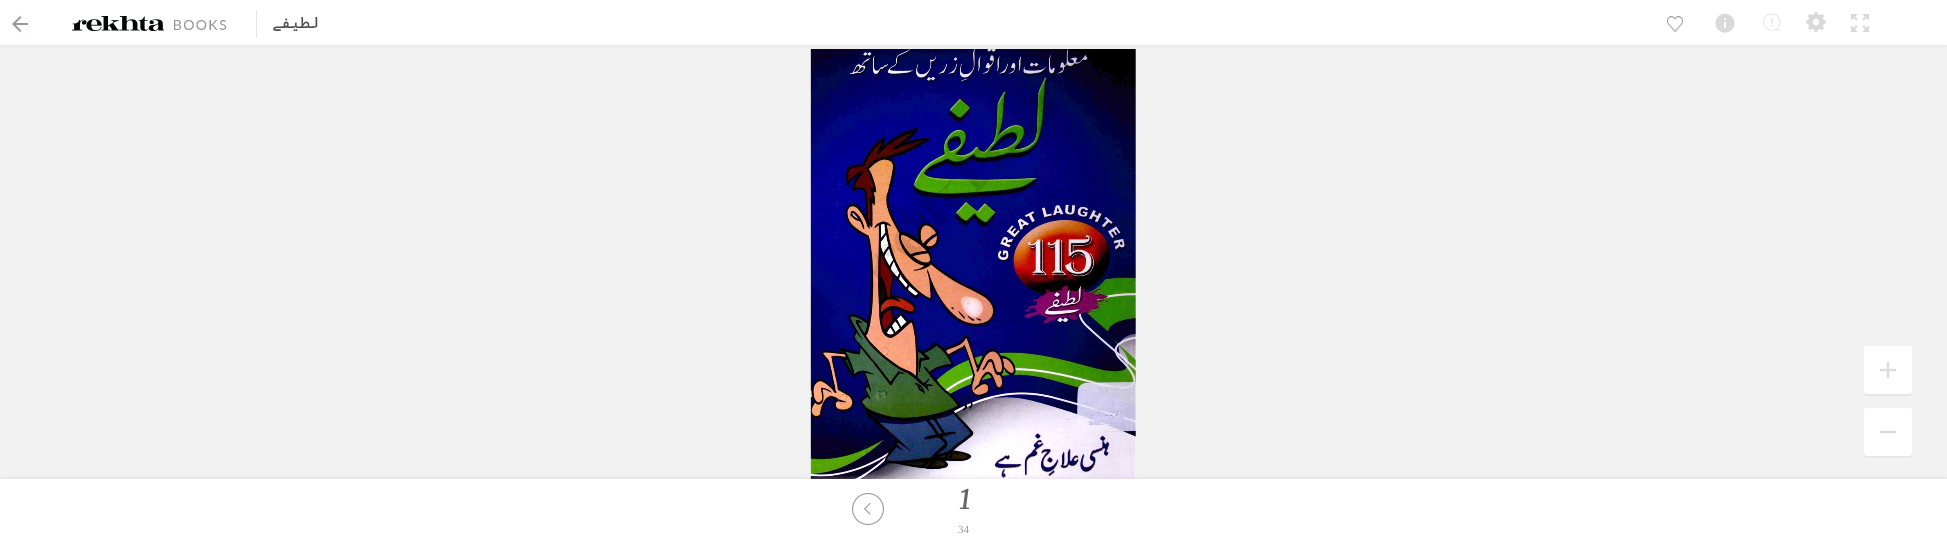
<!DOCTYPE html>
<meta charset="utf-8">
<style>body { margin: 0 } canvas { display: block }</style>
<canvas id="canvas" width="1947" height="539"></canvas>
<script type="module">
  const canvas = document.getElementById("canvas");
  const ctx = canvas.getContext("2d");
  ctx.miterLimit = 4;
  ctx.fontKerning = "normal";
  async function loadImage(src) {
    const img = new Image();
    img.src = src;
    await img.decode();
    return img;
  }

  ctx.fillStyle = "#f2f2f2";
  ctx.fillRect(0, 0, 1947, 539);
  ctx.drawImage(await loadImage("img10.png"), 810, 49, 326, 430);
  ctx.fillStyle = "rgba(199, 199, 199, 0.4)";
  ctx.filter = "blur(2px)";
  ctx.beginPath();
  ctx.rect(1, 1, 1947, 45);
  ctx.fill();
  ctx.filter = "none";
  ctx.fillStyle = "#ffffff";
  ctx.fillRect(0, 0, 1947, 45);
  ctx.drawImage(await loadImage("img1.png"), 1851, 14, 18, 18);
  ctx.drawImage(await loadImage("img2.png"), 1806, 12, 20, 20);
  ctx.drawImage(await loadImage("img3.png"), 1763, 13, 18, 18);
  ctx.drawImage(await loadImage("img4.png"), 1715, 13, 20, 20);
  ctx.drawImage(await loadImage("img5.png"), 1667, 16, 16, 16);
  ctx.direction = "rtl";
  ctx.font = "16px Cascadia Code";
  ctx.fillStyle = "#4c4c4c";
  ctx.fillText("لطیفے", 319, 28);
  ctx.fillStyle = "#e6e6e6";
  ctx.fillRect(256, 10, 1, 28);
  ctx.drawImage(await loadImage("img6.png"), 72, 16, 155, 15);
  ctx.drawImage(await loadImage("img7.png"), 11, 15, 20, 19);
  ctx.drawImage(await loadImage("img8.png"), 1864, 346, 48, 50);
  ctx.drawImage(await loadImage("img9.png"), 1864, 408, 48, 50);
  ctx.fillStyle = "rgba(199, 199, 199, 0.4)";
  ctx.filter = "blur(2px)";
  ctx.beginPath();
  ctx.rect(1, 478, 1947, 60);
  ctx.fill();
  ctx.filter = "none";
  ctx.fillStyle = "#ffffff";
  ctx.fillRect(0, 479, 1947, 60);
  ctx.letterSpacing = "-3px";
  ctx.direction = "ltr";
  ctx.font = "italic 500 27px Merriweather";
  ctx.fillStyle = "#666666";
  ctx.fillText("1", 959, 509);
  ctx.drawImage(await loadImage("img11.png"), 852, 493, 32, 32);
  ctx.letterSpacing = "0px";
  ctx.font = "11px Liberation Serif";
  ctx.fillStyle = "#999999";
  ctx.fillText("34", 958, 533);
</script>
